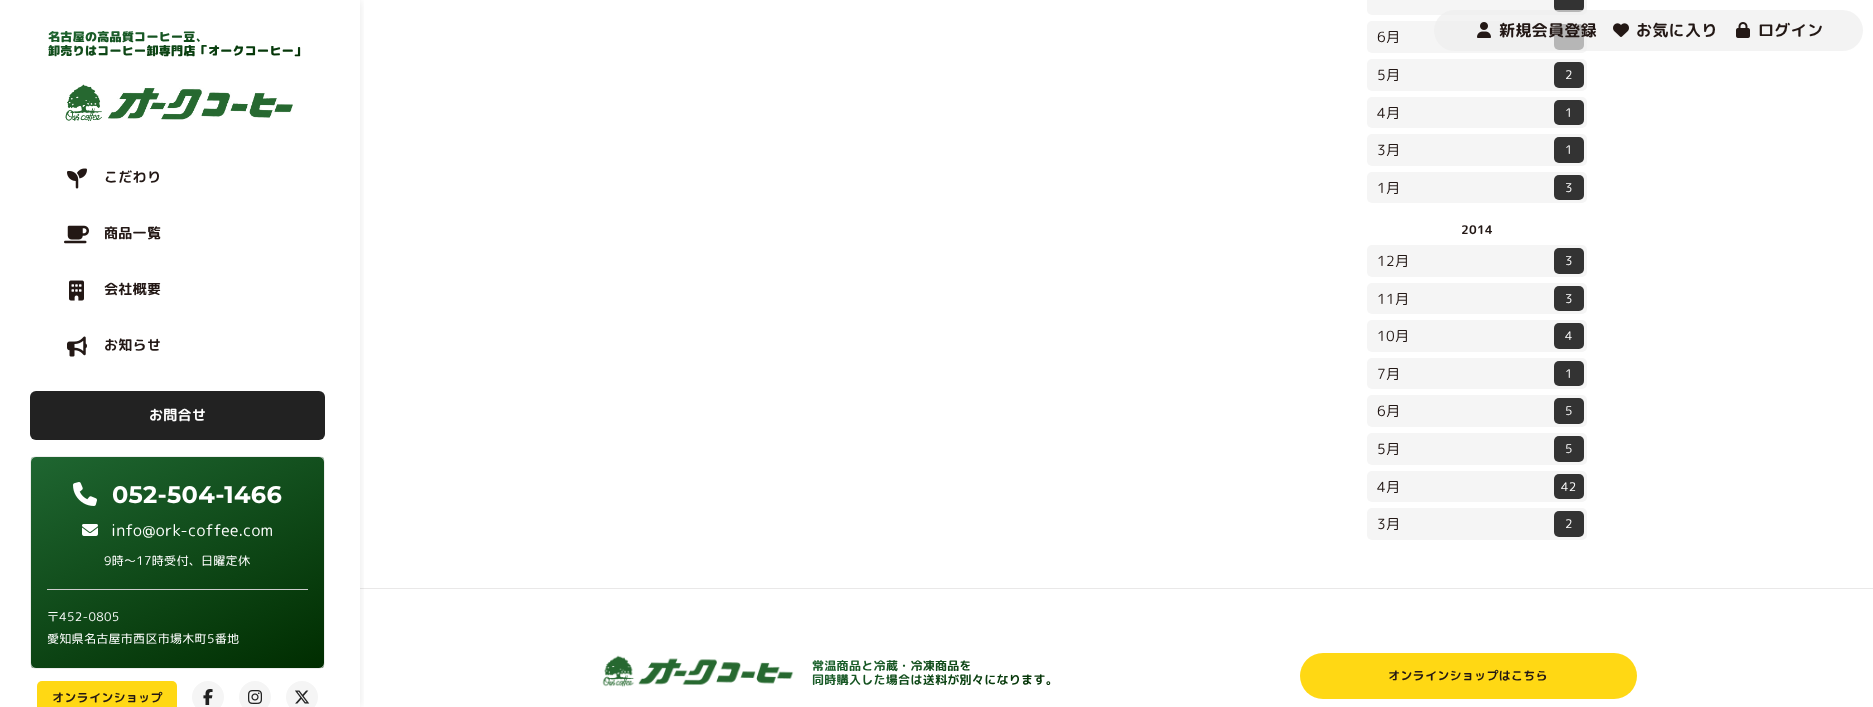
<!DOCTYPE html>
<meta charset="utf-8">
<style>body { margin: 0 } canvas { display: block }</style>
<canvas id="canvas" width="1873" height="707"></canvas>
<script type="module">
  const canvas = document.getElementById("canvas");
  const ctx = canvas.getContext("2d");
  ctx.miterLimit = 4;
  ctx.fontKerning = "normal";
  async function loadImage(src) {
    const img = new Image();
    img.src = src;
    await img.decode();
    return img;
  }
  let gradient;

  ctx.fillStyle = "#ffffff";
  ctx.fillRect(0, 0, 1873, 707);
  ctx.fillStyle = "#e9e8e8";
  ctx.fillRect(360, 588, 1513, 1);
  ctx.save();
  ctx.beginPath();
  ctx.rect(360, 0, 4, 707);
  ctx.clip();
  ctx.fillStyle = "rgba(34, 34, 34, 0.1)";
  ctx.filter = "blur(5px)";
  ctx.beginPath();
  ctx.rect(0, 0, 360, 707);
  ctx.fill();
  ctx.filter = "none";
  ctx.restore();
  ctx.letterSpacing = "0.3px";
  ctx.font = "900 12px 'Rounded Mplus 1c'";
  gradient = ctx.createLinearGradient(175, 19, 180, 70);
  gradient.addColorStop(0, "#1f6631");
  gradient.addColorStop(1, "#002d00");
  ctx.fillStyle = gradient;
  ctx.fillText("名古屋の高品質コーヒー豆、", 48, 41);
  ctx.fillText("卸売りはコーヒー卸専門店「オークコーヒー」", 48, 55);
  ctx.drawImage(await loadImage("img1.png"), 65, 84, 228, 37);
  ctx.drawImage(await loadImage("img2.png"), 67, 168, 20, 21);
  ctx.font = "bold 14px 'Rounded Mplus 1c Bold'";
  ctx.fillStyle = "#231815";
  ctx.fillText("こだわり", 104, 182);
  ctx.drawImage(await loadImage("img3.png"), 64, 225, 25, 19);
  ctx.fillText("商品一覧", 104, 238);
  ctx.drawImage(await loadImage("img4.png"), 69, 280, 15, 21);
  ctx.fillText("会社概要", 104, 294);
  ctx.drawImage(await loadImage("img5.png"), 67, 336, 20, 21);
  ctx.fillText("お知らせ", 104, 350);
  ctx.fillStyle = "#222222";
  ctx.beginPath();
  ctx.roundRect(30, 391, 295, 49, 6);
  ctx.fill();
  ctx.fillStyle = "#ffffff";
  ctx.fillText("お問合せ", 149, 420);
  ctx.save();
  ctx.beginPath();
  ctx.roundRect(30, 456, 295, 213, 6);
  ctx.clip();
  gradient = ctx.createLinearGradient(111, 420, 244, 705);
  gradient.addColorStop(0, "#1f6631");
  gradient.addColorStop(1, "#002d00");
  ctx.fillStyle = gradient;
  ctx.fillRect(31, 457, 293, 211);
  ctx.restore();
  ctx.beginPath();
  ctx.roundRect(30.5, 456.5, 294, 212, 5.5);
  ctx.strokeStyle = "#eeeeee";
  ctx.stroke();
  ctx.drawImage(await loadImage("img6.png"), 73, 482, 24, 24);
  ctx.font = "bold 24px Montserrat";
  ctx.fillText("052-504-1466", 112, 503);
  ctx.drawImage(await loadImage("img7.png"), 82, 524, 16, 12);
  ctx.font = "16px 'Rounded Mplus 1c'";
  ctx.fillText("info@ork-coffee.com", 111, 536);
  ctx.font = "12px 'Rounded Mplus 1c'";
  ctx.fillText("9時～17時受付、日曜定休", 104, 565);
  ctx.fillStyle = "#cccccc";
  ctx.fillRect(47, 589, 261, 1);
  ctx.fillStyle = "#ffffff";
  ctx.fillText("〒452-0805", 47, 621);
  ctx.fillText("愛知県名古屋市西区市場木町5番地", 47, 643);
  ctx.fillStyle = "#ffd814";
  ctx.beginPath();
  ctx.roundRect(37, 681, 140, 26, [5, 5, 0, 0]);
  ctx.fill();
  ctx.font = "bold 12px 'Rounded Mplus 1c Bold'";
  ctx.fillStyle = "#231815";
  ctx.fillText("オンラインショップ", 52, 702);
  ctx.fillStyle = "#f5f5f5";
  ctx.beginPath();
  ctx.arc(208, 697, 16, 0, Math.PI * 2);
  ctx.fill();
  ctx.drawImage(await loadImage("img8.png"), 203, 689, 10, 16);
  ctx.beginPath();
  ctx.arc(255, 697, 16, 0, Math.PI * 2);
  ctx.fill();
  ctx.drawImage(await loadImage("img9.png"), 248, 690, 14, 14);
  ctx.beginPath();
  ctx.arc(302, 697, 16, 0, Math.PI * 2);
  ctx.fill();
  ctx.drawImage(await loadImage("img10.png"), 295, 690, 15, 14);
  ctx.beginPath();
  ctx.roundRect(1367, -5, 220, 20, 5);
  ctx.fill();
  ctx.fillStyle = "#333333";
  ctx.beginPath();
  ctx.roundRect(1554, -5, 30, 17, 5);
  ctx.fill();
  ctx.fillStyle = "#f5f5f5";
  ctx.beginPath();
  ctx.roundRect(1367, 21, 220, 32, 5);
  ctx.fill();
  ctx.font = "14px 'Rounded Mplus 1c'";
  ctx.fillStyle = "#231815";
  ctx.fillText("6月", 1377, 42);
  ctx.fillStyle = "#333333";
  ctx.beginPath();
  ctx.roundRect(1554, 24, 30, 26, 5);
  ctx.fill();
  ctx.fillStyle = "#f5f5f5";
  ctx.beginPath();
  ctx.roundRect(1367, 59, 220, 32, 5);
  ctx.fill();
  ctx.fillStyle = "#231815";
  ctx.fillText("5月", 1377, 80);
  ctx.fillStyle = "#333333";
  ctx.beginPath();
  ctx.roundRect(1554, 62, 30, 26, 5);
  ctx.fill();
  ctx.font = "12px 'Rounded Mplus 1c'";
  ctx.fillStyle = "#ffffff";
  ctx.fillText("2", 1565, 79);
  ctx.fillStyle = "#f5f5f5";
  ctx.beginPath();
  ctx.roundRect(1367, 97, 220, 31, 5);
  ctx.fill();
  ctx.font = "14px 'Rounded Mplus 1c'";
  ctx.fillStyle = "#231815";
  ctx.fillText("4月", 1377, 118);
  ctx.fillStyle = "#333333";
  ctx.beginPath();
  ctx.roundRect(1554, 100, 30, 25, 5);
  ctx.fill();
  ctx.font = "12px 'Rounded Mplus 1c'";
  ctx.fillStyle = "#ffffff";
  ctx.fillText("1", 1565, 117);
  ctx.fillStyle = "#f5f5f5";
  ctx.beginPath();
  ctx.roundRect(1367, 134, 220, 32, 5);
  ctx.fill();
  ctx.font = "14px 'Rounded Mplus 1c'";
  ctx.fillStyle = "#231815";
  ctx.fillText("3月", 1377, 155);
  ctx.fillStyle = "#333333";
  ctx.beginPath();
  ctx.roundRect(1554, 137, 30, 26, 5);
  ctx.fill();
  ctx.font = "12px 'Rounded Mplus 1c'";
  ctx.fillStyle = "#ffffff";
  ctx.fillText("1", 1565, 154);
  ctx.fillStyle = "#f5f5f5";
  ctx.beginPath();
  ctx.roundRect(1367, 172, 220, 31, 5);
  ctx.fill();
  ctx.font = "14px 'Rounded Mplus 1c'";
  ctx.fillStyle = "#231815";
  ctx.fillText("1月", 1377, 193);
  ctx.fillStyle = "#333333";
  ctx.beginPath();
  ctx.roundRect(1554, 175, 30, 25, 5);
  ctx.fill();
  ctx.font = "12px 'Rounded Mplus 1c'";
  ctx.fillStyle = "#ffffff";
  ctx.fillText("3", 1565, 192);
  ctx.font = "bold 12px 'Rounded Mplus 1c Bold'";
  ctx.fillStyle = "#231815";
  ctx.fillText("2014", 1461, 234);
  ctx.fillStyle = "#f5f5f5";
  ctx.beginPath();
  ctx.roundRect(1367, 245, 220, 32, 5);
  ctx.fill();
  ctx.font = "14px 'Rounded Mplus 1c'";
  ctx.fillStyle = "#231815";
  ctx.fillText("12月", 1377, 266);
  ctx.fillStyle = "#333333";
  ctx.beginPath();
  ctx.roundRect(1554, 248, 30, 26, 5);
  ctx.fill();
  ctx.font = "12px 'Rounded Mplus 1c'";
  ctx.fillStyle = "#ffffff";
  ctx.fillText("3", 1565, 265);
  ctx.fillStyle = "#f5f5f5";
  ctx.beginPath();
  ctx.roundRect(1367, 283, 220, 31, 5);
  ctx.fill();
  ctx.font = "14px 'Rounded Mplus 1c'";
  ctx.fillStyle = "#231815";
  ctx.fillText("11月", 1377, 304);
  ctx.fillStyle = "#333333";
  ctx.beginPath();
  ctx.roundRect(1554, 286, 30, 25, 5);
  ctx.fill();
  ctx.font = "12px 'Rounded Mplus 1c'";
  ctx.fillStyle = "#ffffff";
  ctx.fillText("3", 1565, 303);
  ctx.fillStyle = "#f5f5f5";
  ctx.beginPath();
  ctx.roundRect(1367, 320, 220, 32, 5);
  ctx.fill();
  ctx.font = "14px 'Rounded Mplus 1c'";
  ctx.fillStyle = "#231815";
  ctx.fillText("10月", 1377, 341);
  ctx.fillStyle = "#333333";
  ctx.beginPath();
  ctx.roundRect(1554, 323, 30, 26, 5);
  ctx.fill();
  ctx.font = "12px 'Rounded Mplus 1c'";
  ctx.fillStyle = "#ffffff";
  ctx.fillText("4", 1565, 340);
  ctx.fillStyle = "#f5f5f5";
  ctx.beginPath();
  ctx.roundRect(1367, 358, 220, 31, 5);
  ctx.fill();
  ctx.font = "14px 'Rounded Mplus 1c'";
  ctx.fillStyle = "#231815";
  ctx.fillText("7月", 1377, 379);
  ctx.fillStyle = "#333333";
  ctx.beginPath();
  ctx.roundRect(1554, 361, 30, 25, 5);
  ctx.fill();
  ctx.font = "12px 'Rounded Mplus 1c'";
  ctx.fillStyle = "#ffffff";
  ctx.fillText("1", 1565, 378);
  ctx.fillStyle = "#f5f5f5";
  ctx.beginPath();
  ctx.roundRect(1367, 395, 220, 32, 5);
  ctx.fill();
  ctx.font = "14px 'Rounded Mplus 1c'";
  ctx.fillStyle = "#231815";
  ctx.fillText("6月", 1377, 416);
  ctx.fillStyle = "#333333";
  ctx.beginPath();
  ctx.roundRect(1554, 398, 30, 26, 5);
  ctx.fill();
  ctx.font = "12px 'Rounded Mplus 1c'";
  ctx.fillStyle = "#ffffff";
  ctx.fillText("5", 1565, 415);
  ctx.fillStyle = "#f5f5f5";
  ctx.beginPath();
  ctx.roundRect(1367, 433, 220, 32, 5);
  ctx.fill();
  ctx.font = "14px 'Rounded Mplus 1c'";
  ctx.fillStyle = "#231815";
  ctx.fillText("5月", 1377, 454);
  ctx.fillStyle = "#333333";
  ctx.beginPath();
  ctx.roundRect(1554, 436, 30, 26, 5);
  ctx.fill();
  ctx.font = "12px 'Rounded Mplus 1c'";
  ctx.fillStyle = "#ffffff";
  ctx.fillText("5", 1565, 453);
  ctx.fillStyle = "#f5f5f5";
  ctx.beginPath();
  ctx.roundRect(1367, 471, 220, 31, 5);
  ctx.fill();
  ctx.font = "14px 'Rounded Mplus 1c'";
  ctx.fillStyle = "#231815";
  ctx.fillText("4月", 1377, 492);
  ctx.fillStyle = "#333333";
  ctx.beginPath();
  ctx.roundRect(1554, 474, 30, 25, 5);
  ctx.fill();
  ctx.font = "12px 'Rounded Mplus 1c'";
  ctx.fillStyle = "#ffffff";
  ctx.fillText("42", 1561, 491);
  ctx.fillStyle = "#f5f5f5";
  ctx.beginPath();
  ctx.roundRect(1367, 508, 220, 32, 5);
  ctx.fill();
  ctx.font = "14px 'Rounded Mplus 1c'";
  ctx.fillStyle = "#231815";
  ctx.fillText("3月", 1377, 529);
  ctx.fillStyle = "#333333";
  ctx.beginPath();
  ctx.roundRect(1554, 511, 30, 26, 5);
  ctx.fill();
  ctx.font = "12px 'Rounded Mplus 1c'";
  ctx.fillStyle = "#ffffff";
  ctx.fillText("2", 1565, 528);
  ctx.drawImage(await loadImage("img11.png"), 602, 655, 192, 32);
  ctx.font = "bold 12px 'Rounded Mplus 1c Bold'";
  gradient = ctx.createLinearGradient(907, 614, 962, 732);
  gradient.addColorStop(0, "#1f6631");
  gradient.addColorStop(1, "#002d00");
  ctx.fillStyle = gradient;
  ctx.fillText("常温商品と冷蔵・冷凍商品を", 812, 670);
  ctx.fillText("同時購入した場合は送料が別々になります。", 812, 684);
  ctx.fillStyle = "#ffd814";
  ctx.beginPath();
  ctx.roundRect(1300, 653, 337, 46, 23);
  ctx.fill();
  ctx.fillStyle = "#231815";
  ctx.fillText("オンラインショップはこちら", 1388, 680);
  ctx.fillStyle = "rgba(238, 238, 238, 0.7)";
  ctx.beginPath();
  ctx.roundRect(1434, 10, 429, 41, 20.5);
  ctx.fill();
  ctx.drawImage(await loadImage("img12.png"), 1477, 22, 14, 16);
  ctx.font = "bold 16px 'Rounded Mplus 1c Bold'";
  ctx.fillStyle = "#231815";
  ctx.fillText("新規会員登録", 1499, 36);
  ctx.drawImage(await loadImage("img13.png"), 1613, 23, 16, 14);
  ctx.fillText("お気に入り", 1636, 36);
  ctx.drawImage(await loadImage("img14.png"), 1736, 22, 14, 16);
  ctx.fillText("ログイン", 1758, 36);
</script>
